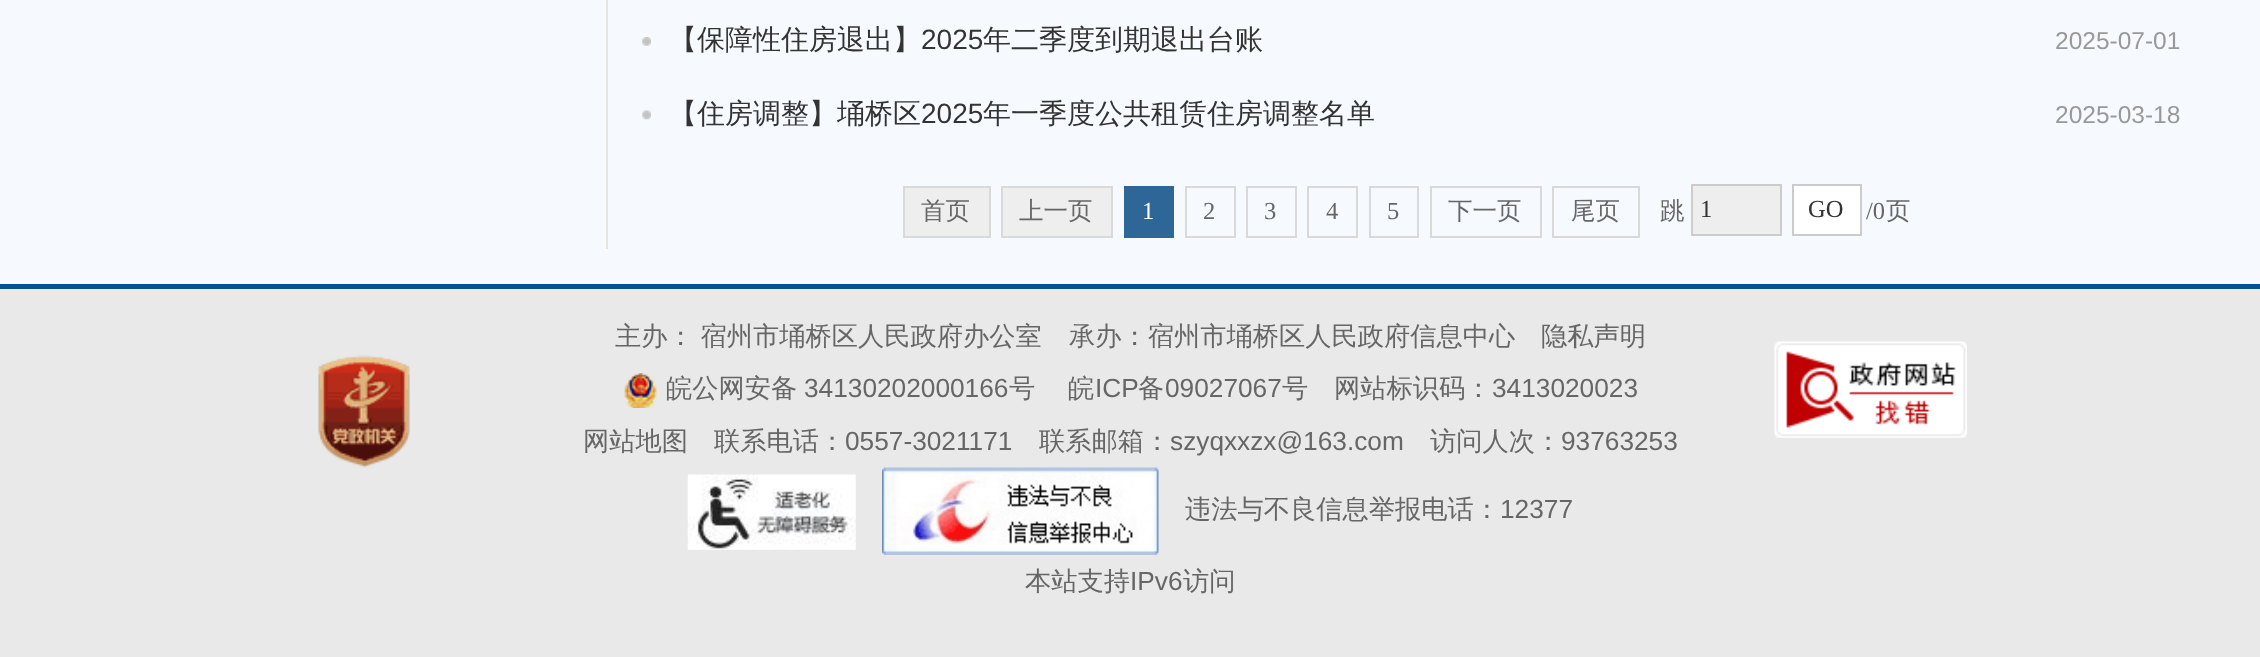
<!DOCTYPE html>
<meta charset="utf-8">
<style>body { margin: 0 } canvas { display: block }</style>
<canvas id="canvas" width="2260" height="657"></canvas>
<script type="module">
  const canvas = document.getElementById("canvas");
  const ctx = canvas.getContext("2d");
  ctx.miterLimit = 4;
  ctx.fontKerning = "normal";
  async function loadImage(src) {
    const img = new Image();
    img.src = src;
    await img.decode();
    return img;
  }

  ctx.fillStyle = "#f6faff";
  ctx.fillRect(0, 0, 2260, 657);
  ctx.fillStyle = "#e4e4e4";
  ctx.fillRect(606, 0, 2, 249);
  ctx.drawImage(await loadImage("img1.png"), 642, 37, 9, 9);
  ctx.font = "500 28px WenQuanYi Zen Hei";
  ctx.fillStyle = "#333333";
  ctx.fillText("【保障性住房退出】", 669, 49);
  ctx.font = "28px Liberation Sans";
  ctx.fillText("2025", 921, 49);
  ctx.font = "500 28px WenQuanYi Zen Hei";
  ctx.fillText("年二季度到期退出台账", 983, 49);
  ctx.font = "24.5px Liberation Sans";
  ctx.fillStyle = "#999999";
  ctx.fillText("2025-07-01", 2055, 49);
  ctx.drawImage(await loadImage("img2.png"), 642, 110, 9, 10);
  ctx.font = "500 28px WenQuanYi Zen Hei";
  ctx.fillStyle = "#333333";
  ctx.fillText("【住房调整】埇桥区", 669, 123);
  ctx.font = "28px Liberation Sans";
  ctx.fillText("2025", 921, 123);
  ctx.font = "500 28px WenQuanYi Zen Hei";
  ctx.fillText("年一季度公共租赁住房调整名单", 983, 123);
  ctx.font = "24.5px Liberation Sans";
  ctx.fillStyle = "#999999";
  ctx.fillText("2025-03-18", 2055, 123);
  ctx.fillStyle = "#eeeeee";
  ctx.beginPath();
  ctx.rect(904, 187, 86, 50);
  ctx.fill();
  ctx.strokeStyle = "#d9d9d9";
  ctx.lineWidth = 2;
  ctx.stroke();
  ctx.font = "500 24.5px WenQuanYi Zen Hei";
  ctx.fillStyle = "#666666";
  ctx.fillText("首页", 921, 219);
  ctx.fillStyle = "#eeeeee";
  ctx.beginPath();
  ctx.rect(1002, 187, 110, 50);
  ctx.fill();
  ctx.stroke();
  ctx.fillStyle = "#666666";
  ctx.fillText("上一页", 1019, 219);
  ctx.fillStyle = "#2f6698";
  ctx.fillRect(1124, 186, 50, 52);
  ctx.font = "24.5px Liberation Serif";
  ctx.fillStyle = "#ffffff";
  ctx.fillText("1", 1142, 219);
  ctx.strokeRect(1186, 187, 49, 50);
  ctx.fillStyle = "#666666";
  ctx.fillText("2", 1203, 219);
  ctx.strokeRect(1247, 187, 49, 50);
  ctx.fillText("3", 1264, 219);
  ctx.strokeRect(1308, 187, 49, 50);
  ctx.fillText("4", 1326, 219);
  ctx.strokeRect(1370, 187, 48, 50);
  ctx.fillText("5", 1387, 219);
  ctx.strokeRect(1431, 187, 110, 50);
  ctx.font = "500 24.5px WenQuanYi Zen Hei";
  ctx.fillText("下一页", 1448, 219);
  ctx.strokeRect(1553, 187, 86, 50);
  ctx.fillText("尾页", 1571, 219);
  ctx.fillText("跳", 1660, 219);
  ctx.fillStyle = "#eeeeee";
  ctx.beginPath();
  ctx.rect(1692, 185, 89, 50);
  ctx.fill();
  ctx.strokeStyle = "#cccccc";
  ctx.stroke();
  ctx.font = "24.5px Liberation Serif";
  ctx.fillStyle = "#333333";
  ctx.fillText("1", 1700, 217);
  ctx.fillStyle = "#ffffff";
  ctx.beginPath();
  ctx.rect(1793, 185, 68, 50);
  ctx.fill();
  ctx.stroke();
  ctx.fillStyle = "#333333";
  ctx.fillText("GO", 1808, 217);
  ctx.fillStyle = "#666666";
  ctx.fillText("/0", 1866, 219);
  ctx.font = "500 24.5px WenQuanYi Zen Hei";
  ctx.fillText("页", 1886, 219);
  ctx.fillStyle = "#e9e9e9";
  ctx.fillRect(0, 289, 2260, 368);
  ctx.fillStyle = "#015293";
  ctx.fillRect(0, 284, 2260, 5);
  ctx.wordSpacing = "-1px";
  ctx.font = "500 26.25px WenQuanYi Zen Hei";
  ctx.fillStyle = "#666666";
  ctx.fillText("主办： 宿州市埇桥区人民政府办公室", 615, 345);
  ctx.wordSpacing = "0px";
  ctx.fillText("承办：宿州市埇桥区人民政府信息中心", 1069, 345);
  ctx.fillText("隐私声明", 1541, 345);
  ctx.drawImage(await loadImage("img3.png"), 318, 355, 92, 113);
  ctx.drawImage(await loadImage("img4.png"), 624, 373, 33, 35);
  ctx.fillText("皖公网安备", 666, 397);
  ctx.font = "26.25px Liberation Sans";
  ctx.fillText("34130202000166", 804, 397);
  ctx.font = "500 26.25px WenQuanYi Zen Hei";
  ctx.fillText("号", 1009, 397);
  ctx.fillText("皖", 1068, 397);
  ctx.font = "26.25px Liberation Sans";
  ctx.fillText("ICP", 1095, 397);
  ctx.font = "500 26.25px WenQuanYi Zen Hei";
  ctx.fillText("备", 1138, 397);
  ctx.font = "26.25px Liberation Sans";
  ctx.fillText("09027067", 1165, 397);
  ctx.font = "500 26.25px WenQuanYi Zen Hei";
  ctx.fillText("号", 1282, 397);
  ctx.fillText("网站标识码：", 1334, 397);
  ctx.font = "26.25px Liberation Sans";
  ctx.fillText("3413020023", 1492, 397);
  ctx.drawImage(await loadImage("img5.png"), 1774, 341, 193, 97);
  ctx.font = "500 26.25px WenQuanYi Zen Hei";
  ctx.fillText("网站地图", 583, 450);
  ctx.fillText("联系电话：", 714, 450);
  ctx.font = "26.25px Liberation Sans";
  ctx.fillText("0557-3021171", 845, 450);
  ctx.font = "500 26.25px WenQuanYi Zen Hei";
  ctx.fillText("联系邮箱：", 1039, 450);
  ctx.font = "26.25px Liberation Sans";
  ctx.fillText("szyqxxzx@163.com", 1170, 450);
  ctx.font = "500 26.25px WenQuanYi Zen Hei";
  ctx.fillText("访问人次：", 1430, 450);
  ctx.font = "26.25px Liberation Sans";
  ctx.fillText("93763253", 1561, 450);
  ctx.drawImage(await loadImage("img6.png"), 687, 474, 169, 76);
  ctx.drawImage(await loadImage("img7.png"), 882, 467, 277, 88);
  ctx.font = "500 26.25px WenQuanYi Zen Hei";
  ctx.fillText("违法与不良信息举报电话：", 1185, 518);
  ctx.font = "26.25px Liberation Sans";
  ctx.fillText("12377", 1500, 518);
  ctx.font = "500 26.25px WenQuanYi Zen Hei";
  ctx.fillText("本站支持", 1025, 590);
  ctx.font = "26.25px Liberation Sans";
  ctx.fillText("IPv6", 1130, 590);
  ctx.font = "500 26.25px WenQuanYi Zen Hei";
  ctx.fillText("访问", 1183, 590);
</script>
